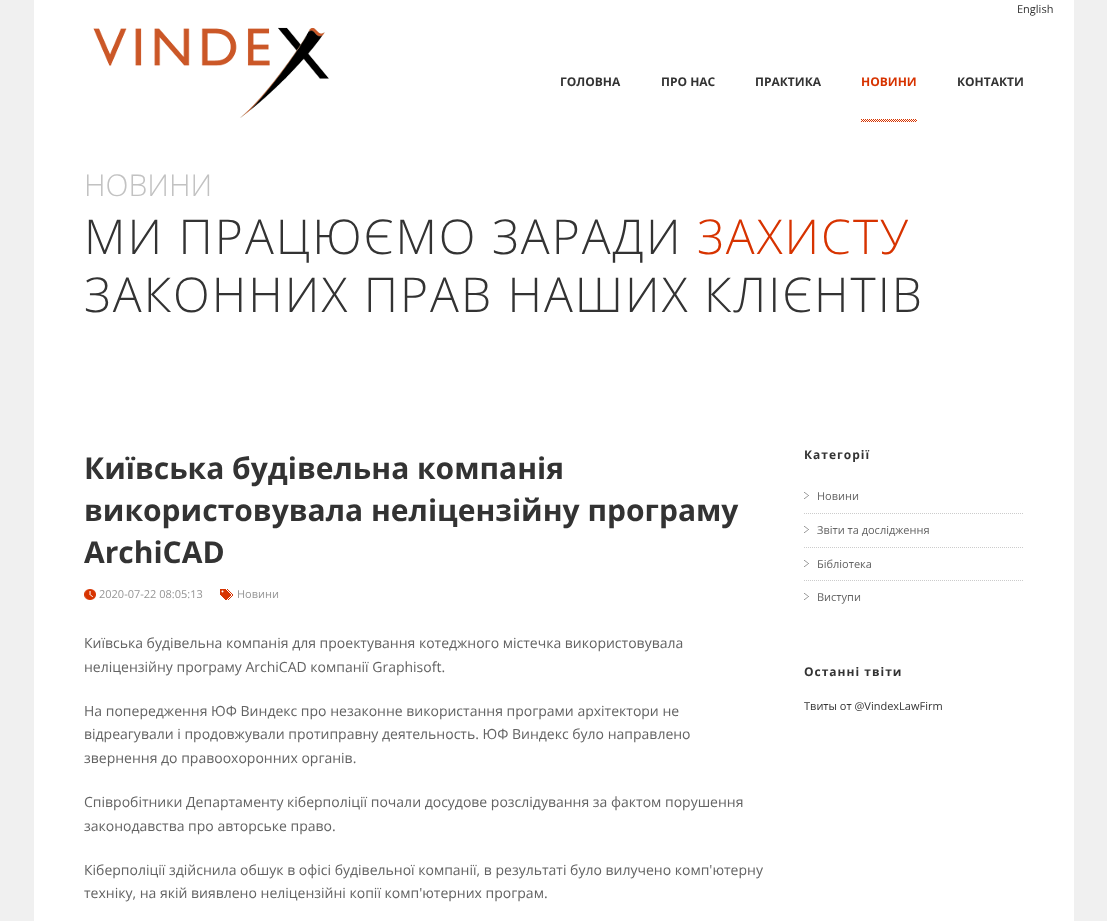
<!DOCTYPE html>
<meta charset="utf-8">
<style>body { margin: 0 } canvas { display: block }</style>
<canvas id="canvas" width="1107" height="921"></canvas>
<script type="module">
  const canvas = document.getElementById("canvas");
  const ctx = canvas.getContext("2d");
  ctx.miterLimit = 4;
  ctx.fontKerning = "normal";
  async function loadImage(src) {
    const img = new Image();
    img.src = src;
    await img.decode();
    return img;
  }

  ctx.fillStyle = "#f0f0f0";
  ctx.fillRect(0, 0, 1107, 921);
  ctx.fillStyle = "#ffffff";
  ctx.fillRect(34, 0, 1040, 921);
  ctx.font = "11px Open Sans";
  ctx.fillStyle = "#333333";
  ctx.fillText("English", 1017, 13);
  ctx.drawImage(await loadImage("img1.png"), 93, 27, 236, 91);
  ctx.font = "bold 12px Open Sans";
  ctx.fillText("ГОЛОВНА", 560, 86);
  ctx.fillText("ПРО НАС", 661, 86);
  ctx.fillText("ПРАКТИКА", 755, 86);
  ctx.drawImage(await loadImage("img2.png"), 861, 119, 56, 3);
  ctx.fillStyle = "#d73300";
  ctx.fillText("НОВИНИ", 861, 86);
  ctx.fillStyle = "#333333";
  ctx.fillText("КОНТАКТИ", 957, 86);
  ctx.font = "300 30px Open Sans";
  ctx.fillStyle = "#c2c2c2";
  ctx.fillText("НОВИНИ", 84, 196);
  ctx.letterSpacing = "2px";
  ctx.font = "300 48px Open Sans";
  ctx.fillStyle = "#333333";
  ctx.fillText("МИ ПРАЦЮЄМО ЗАРАДИ", 84, 254);
  ctx.fillStyle = "#d73300";
  ctx.fillText("ЗАХИСТУ", 697, 254);
  ctx.fillStyle = "#333333";
  ctx.fillText("ЗАКОННИХ ПРАВ НАШИХ КЛІЄНТІВ", 84, 312);
  ctx.letterSpacing = "0px";
  ctx.font = "bold 30px Open Sans";
  ctx.fillText("Київська будівельна компанія", 84, 479);
  ctx.fillText("використовувала неліцензійну програму", 84, 521);
  ctx.fillText("ArchiCAD", 84, 563);
  ctx.drawImage(await loadImage("img3.png"), 84, 589, 12, 11);
  ctx.font = "11px Open Sans";
  ctx.fillStyle = "#959595";
  ctx.fillText("2020-07-22 08:05:13", 99, 598);
  ctx.drawImage(await loadImage("img4.png"), 220, 589, 13, 11);
  ctx.fillText("Новини", 237, 598);
  ctx.font = "14px Open Sans";
  ctx.fillStyle = "#636363";
  ctx.fillText("Київська будівельна компанія для проектування котеджного містечка використовувала", 84, 648);
  ctx.fillText("неліцензійну програму ArchiCAD компанії Graphisoft.", 84, 672);
  ctx.fillText("На попередження ЮФ Виндекс про незаконне використання програми архітектори не", 84, 716);
  ctx.fillText("відреагували і продовжували протиправну деятельность. ЮФ Виндекс було направлено", 84, 739);
  ctx.fillText("звернення до правоохоронних органів.", 84, 763);
  ctx.fillText("Співробітники Департаменту кіберполіції почали досудове розслідування за фактом порушення", 84, 807);
  ctx.fillText("законодавства про авторське право.", 84, 831);
  ctx.fillText("Кіберполіції здійснила обшук в офісі будівельної компанії, в результаті було вилучено комп'ютерну", 84, 875);
  ctx.fillText("техніку, на якій виявлено неліцензійні копії комп'ютерних програм.", 84, 898);
  ctx.letterSpacing = "1px";
  ctx.font = "bold 12px Open Sans";
  ctx.fillStyle = "#333333";
  ctx.fillText("Категорії", 804, 459);
  ctx.drawImage(await loadImage("img5.png"), 804, 492, 5, 7);
  ctx.beginPath();
  ctx.moveTo(804, 513.5);
  ctx.lineTo(1024, 513.5);
  ctx.strokeStyle = "#cccccc";
  ctx.setLineDash([1, 1]);
  ctx.stroke();
  ctx.letterSpacing = "0px";
  ctx.font = "11px Open Sans";
  ctx.fillStyle = "#636363";
  ctx.fillText("Новини", 817, 500);
  ctx.drawImage(await loadImage("img5.png"), 804, 526, 5, 7);
  ctx.beginPath();
  ctx.moveTo(804, 547.5);
  ctx.lineTo(1024, 547.5);
  ctx.stroke();
  ctx.fillText("Звiти та дослiдження", 817, 534);
  ctx.drawImage(await loadImage("img5.png"), 804, 560, 5, 7);
  ctx.beginPath();
  ctx.moveTo(804, 580.5);
  ctx.lineTo(1024, 580.5);
  ctx.stroke();
  ctx.fillText("Бiблiотека", 817, 568);
  ctx.drawImage(await loadImage("img5.png"), 804, 593, 5, 7);
  ctx.fillText("Виступи", 817, 601);
  ctx.letterSpacing = "1px";
  ctx.font = "bold 12px Open Sans";
  ctx.fillStyle = "#333333";
  ctx.fillText("Останнi твiти", 804, 676);
  ctx.letterSpacing = "0px";
  ctx.font = "11px Open Sans";
  ctx.fillText("Твиты от @VindexLawFirm", 804, 710);
</script>
